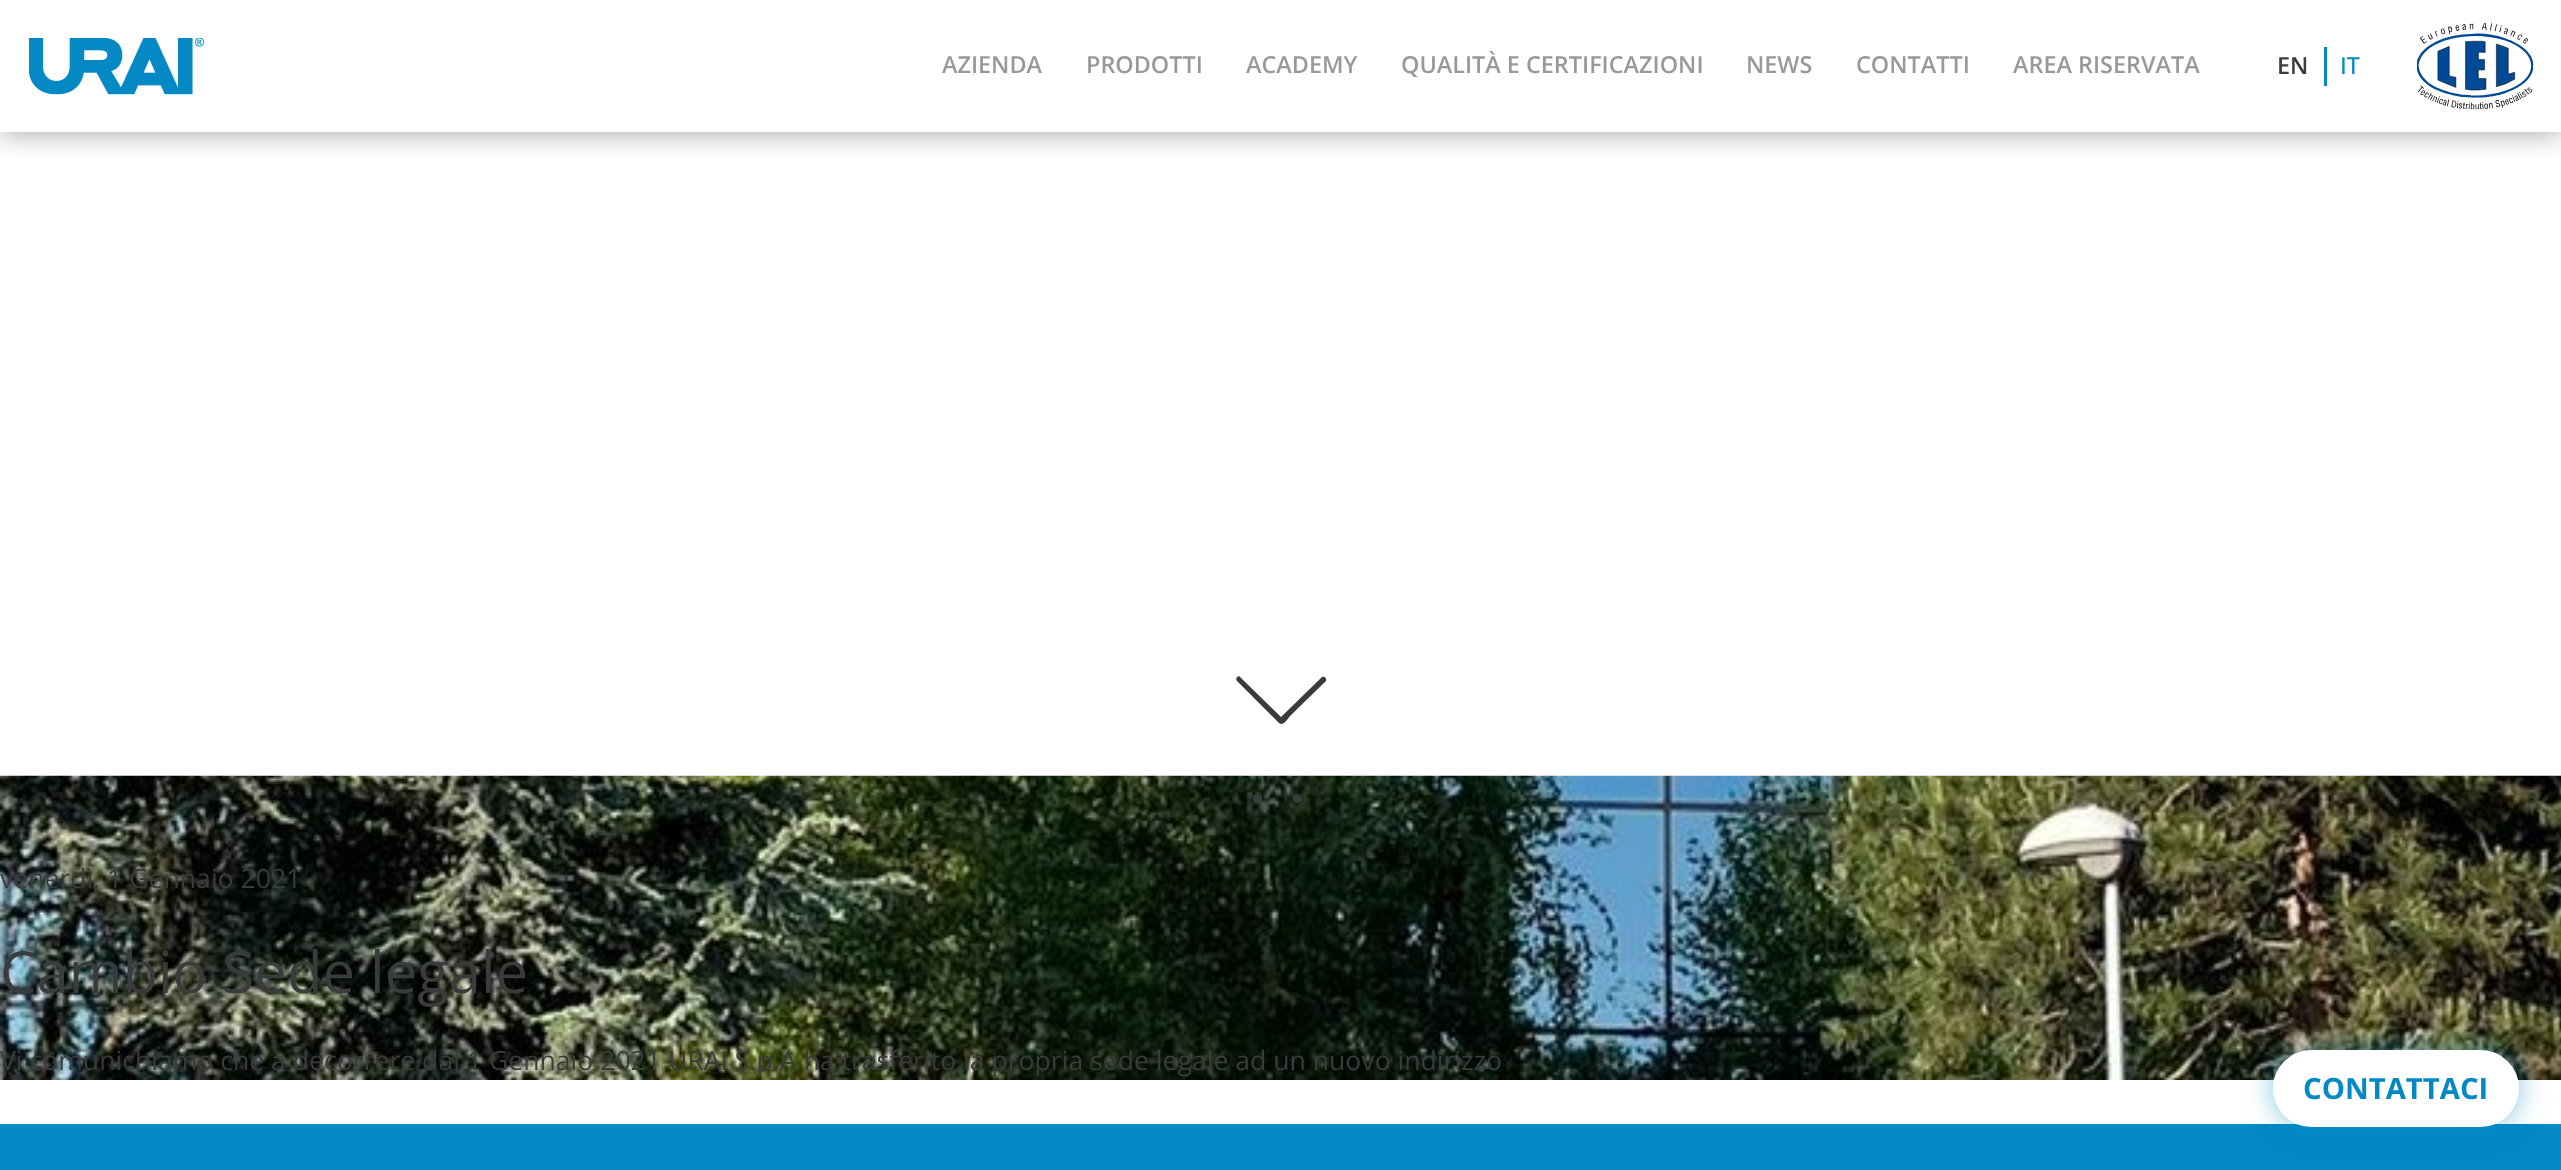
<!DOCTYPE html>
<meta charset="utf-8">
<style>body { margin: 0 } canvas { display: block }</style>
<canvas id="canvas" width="2561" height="1170"></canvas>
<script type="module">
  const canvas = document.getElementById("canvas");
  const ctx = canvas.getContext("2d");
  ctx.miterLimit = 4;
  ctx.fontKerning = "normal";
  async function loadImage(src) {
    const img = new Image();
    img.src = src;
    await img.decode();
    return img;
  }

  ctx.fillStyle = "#ffffff";
  ctx.fillRect(0, 0, 2561, 1170);
  ctx.save();
  ctx.beginPath();
  ctx.rect(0, 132, 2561, 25);
  ctx.clip();
  ctx.fillStyle = "rgba(58, 59, 60, 0.5)";
  ctx.filter = "blur(14.5px)";
  ctx.beginPath();
  ctx.rect(0, 0, 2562, 132);
  ctx.fill();
  ctx.filter = "none";
  ctx.restore();
  ctx.drawImage(await loadImage("img1.png"), 29, 38, 175, 57);
  ctx.font = "600 23.4px Open Sans";
  ctx.fillStyle = "#999999";
  ctx.fillText("AZIENDA", 942, 73);
  ctx.fillText("PRODOTTI", 1086, 73);
  ctx.fillText("ACADEMY", 1246, 73);
  ctx.fillText("QUALITÀ E CERTIFICAZIONI", 1401, 73);
  ctx.fillText("NEWS", 1746, 73);
  ctx.fillText("CONTATTI", 1856, 73);
  ctx.fillText("AREA RISERVATA", 2013, 73);
  ctx.fillStyle = "#0389c4";
  ctx.fillRect(2324, 47, 3, 39);
  ctx.fillStyle = "#3a3b3c";
  ctx.fillText("EN", 2277, 74);
  ctx.font = "500 23.4px Open Sans";
  ctx.fillStyle = "#0389c4";
  ctx.fillText("IT", 2340, 74);
  ctx.drawImage(await loadImage("img2.png"), 2417, 23, 117, 87);
  ctx.fillStyle = "#3a3b3c";
  ctx.beginPath();
  ctx.moveTo(1281, 724);
  ctx.lineTo(1279, 723);
  ctx.lineTo(1237, 681);
  ctx.bezierCurveTo(1236, 680, 1236, 678, 1237, 677);
  ctx.bezierCurveTo(1238, 676, 1240, 676, 1240, 677);
  ctx.lineTo(1281, 717);
  ctx.lineTo(1322, 677);
  ctx.bezierCurveTo(1325, 676, 1327, 679, 1326, 681);
  ctx.lineTo(1290, 716);
  ctx.bezierCurveTo(1289, 717, 1285, 724, 1281, 724);
  ctx.closePath();
  ctx.fill();
  ctx.drawImage(await loadImage("img3.png"), 0, 775, 2561, 305);
  ctx.beginPath();
  ctx.arc(1257.5, 798.5, 4.5, 0, Math.PI * 2);
  ctx.fill();
  ctx.beginPath();
  ctx.arc(1297.5, 798.5, 4.5, 0, Math.PI * 2);
  ctx.fill();
  ctx.font = "26.6px Open Sans";
  ctx.fillText("venerdì, 1 Gennaio 2021", 0, 888);
  ctx.font = "58px Open Sans";
  ctx.fillText("Cambio Sede legale", 0, 993);
  ctx.font = "26.6px Open Sans";
  ctx.fillText("Vi comunichiamo che a decorrere dal 1 Gennaio 2021 URAI S.p.A ha trasferito la propria sede legale ad un nuovo indirizzo", 0, 1070);
  ctx.fillStyle = "#0389c4";
  ctx.fillRect(0, 1124, 2561, 46);
  ctx.fillStyle = "rgba(3, 137, 196, 0.5)";
  ctx.filter = "blur(14.5px)";
  ctx.beginPath();
  ctx.roundRect(2273, 1050, 246, 77, 38.5);
  ctx.fill();
  ctx.filter = "none";
  ctx.fillStyle = "#ffffff";
  ctx.beginPath();
  ctx.roundRect(2274, 1051, 244, 75, 37.5);
  ctx.fill();
  ctx.strokeStyle = "#ffffff";
  ctx.lineWidth = 2;
  ctx.stroke();
  ctx.font = "bold 29.25px Open Sans";
  ctx.fillStyle = "#0389c4";
  ctx.fillText("CONTATTACI", 2303, 1099);
</script>
